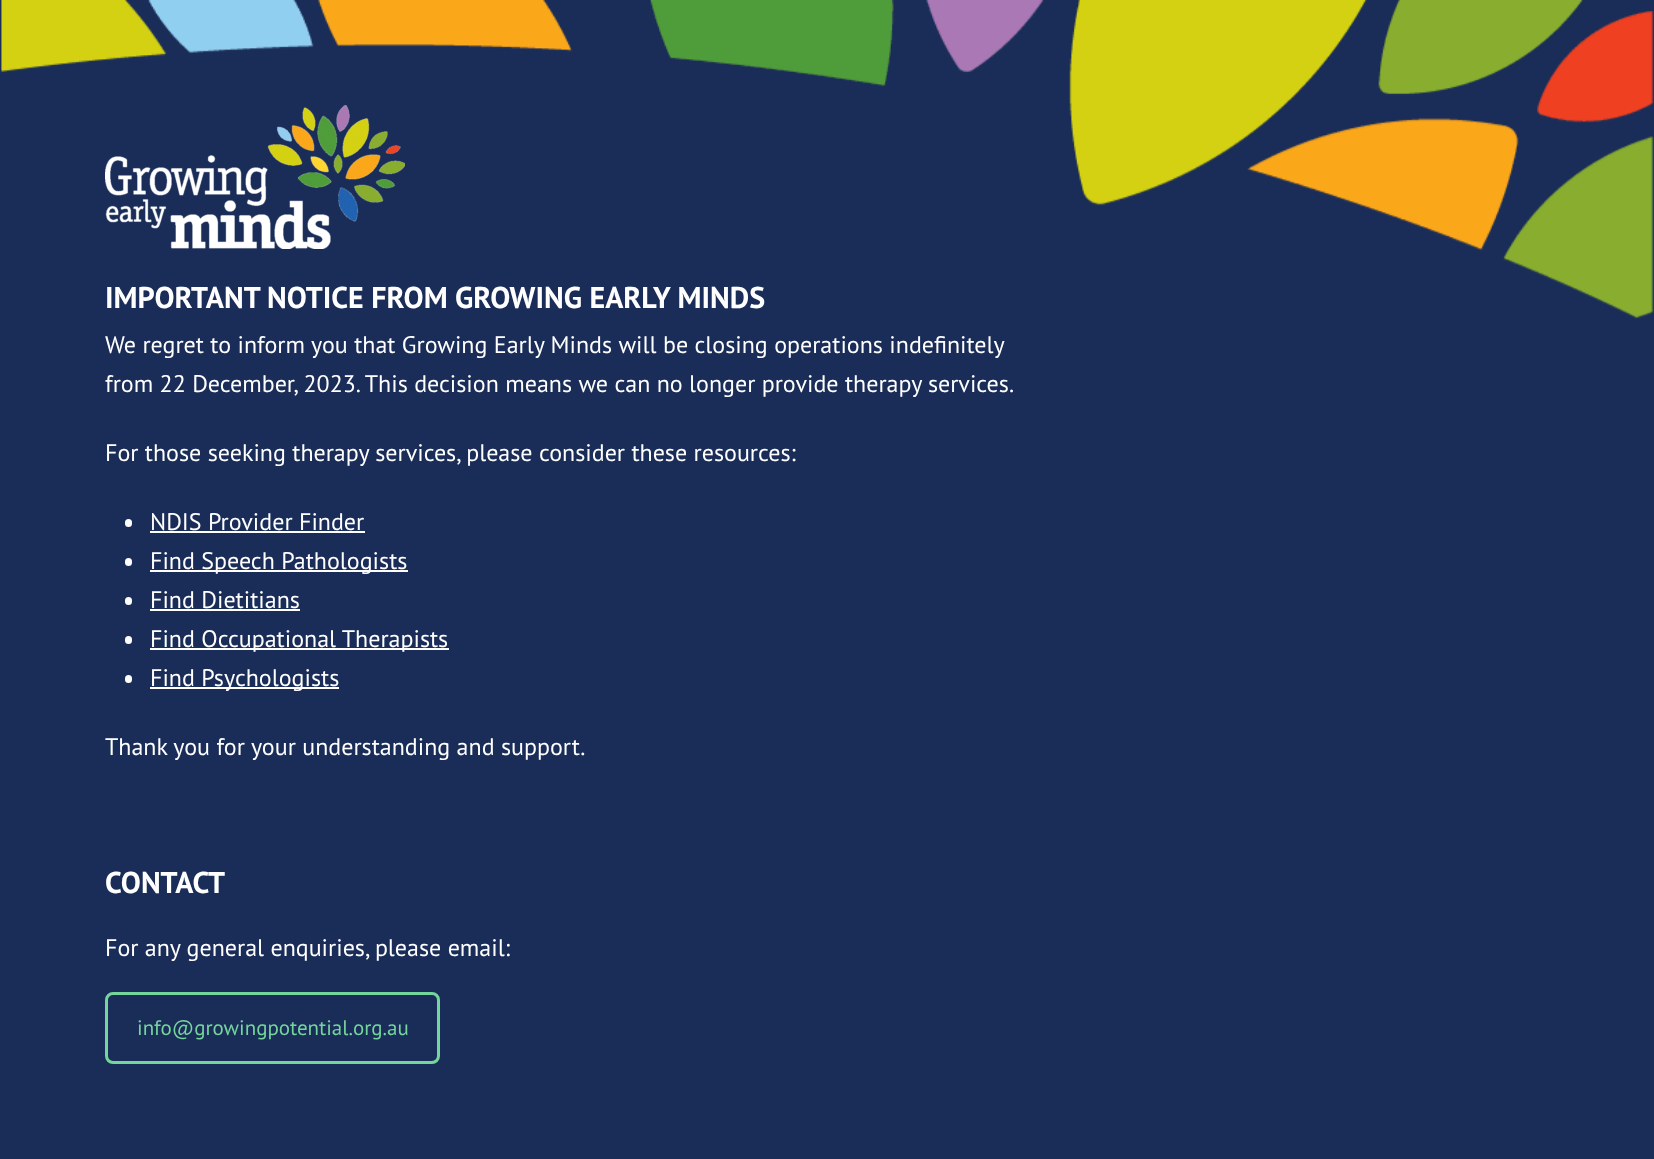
<!DOCTYPE html>
<meta charset="utf-8">
<style>body { margin: 0 } canvas { display: block }</style>
<canvas id="canvas" width="1654" height="1159"></canvas>
<script type="module">
  const canvas = document.getElementById("canvas");
  const ctx = canvas.getContext("2d");
  ctx.miterLimit = 4;
  ctx.fontKerning = "normal";
  async function loadImage(src) {
    const img = new Image();
    img.src = src;
    await img.decode();
    return img;
  }

  ctx.fillStyle = "#1a2d59";
  ctx.fillRect(0, 0, 1654, 1159);
  ctx.drawImage(await loadImage("img1.png"), 1, 0, 1653, 319);
  ctx.drawImage(await loadImage("img2.png"), 105, 105, 300, 144);
  ctx.font = "bold 30px PT Sans";
  ctx.fillStyle = "#ffffff";
  ctx.fillText("IMPORTANT NOTICE FROM GROWING EARLY MINDS", 105, 308);
  ctx.font = "24px PT Sans";
  ctx.fillText("We regret to inform you that Growing Early Minds will be closing operations indefinitely", 105, 353);
  ctx.fillText("from 22 December, 2023. This decision means we can no longer provide therapy services.", 105, 392);
  ctx.fillText("For those seeking therapy services, please consider these resources:", 105, 461);
  ctx.beginPath();
  ctx.roundRect(125, 519, 7, 8, 3.5);
  ctx.fill();
  ctx.fillText("NDIS Provider Finder", 150, 530);
  ctx.fillRect(150, 531, 215, 2);
  ctx.beginPath();
  ctx.roundRect(125, 558, 7, 8, 3.5);
  ctx.fill();
  ctx.fillRect(150, 570, 258, 2);
  ctx.fillText("Find Speech Pathologists", 150, 569);
  ctx.beginPath();
  ctx.roundRect(125, 597, 7, 8, 3.5);
  ctx.fill();
  ctx.fillText("Find Dietitians", 150, 608);
  ctx.fillRect(150, 609, 150, 2);
  ctx.beginPath();
  ctx.roundRect(125, 636, 7, 8, 3.5);
  ctx.fill();
  ctx.fillRect(150, 648, 299, 2);
  ctx.fillText("Find Occupational Therapists", 150, 647);
  ctx.beginPath();
  ctx.roundRect(125, 675, 7, 8, 3.5);
  ctx.fill();
  ctx.fillRect(150, 687, 189, 2);
  ctx.fillText("Find Psychologists", 150, 686);
  ctx.fillText("Thank you for your understanding and support.", 105, 755);
  ctx.font = "bold 30px PT Sans";
  ctx.fillText("CONTACT", 105, 893);
  ctx.font = "24px PT Sans";
  ctx.fillText("For any general enquiries, please email:", 105, 956);
  ctx.beginPath();
  ctx.roundRect(106.5, 993.5, 332, 69, 6.5);
  ctx.strokeStyle = "#75d69c";
  ctx.lineWidth = 3;
  ctx.stroke();
  ctx.font = "21px PT Sans";
  ctx.fillStyle = "#75d69c";
  ctx.fillText("info@growingpotential.org.au", 137, 1035);
</script>
